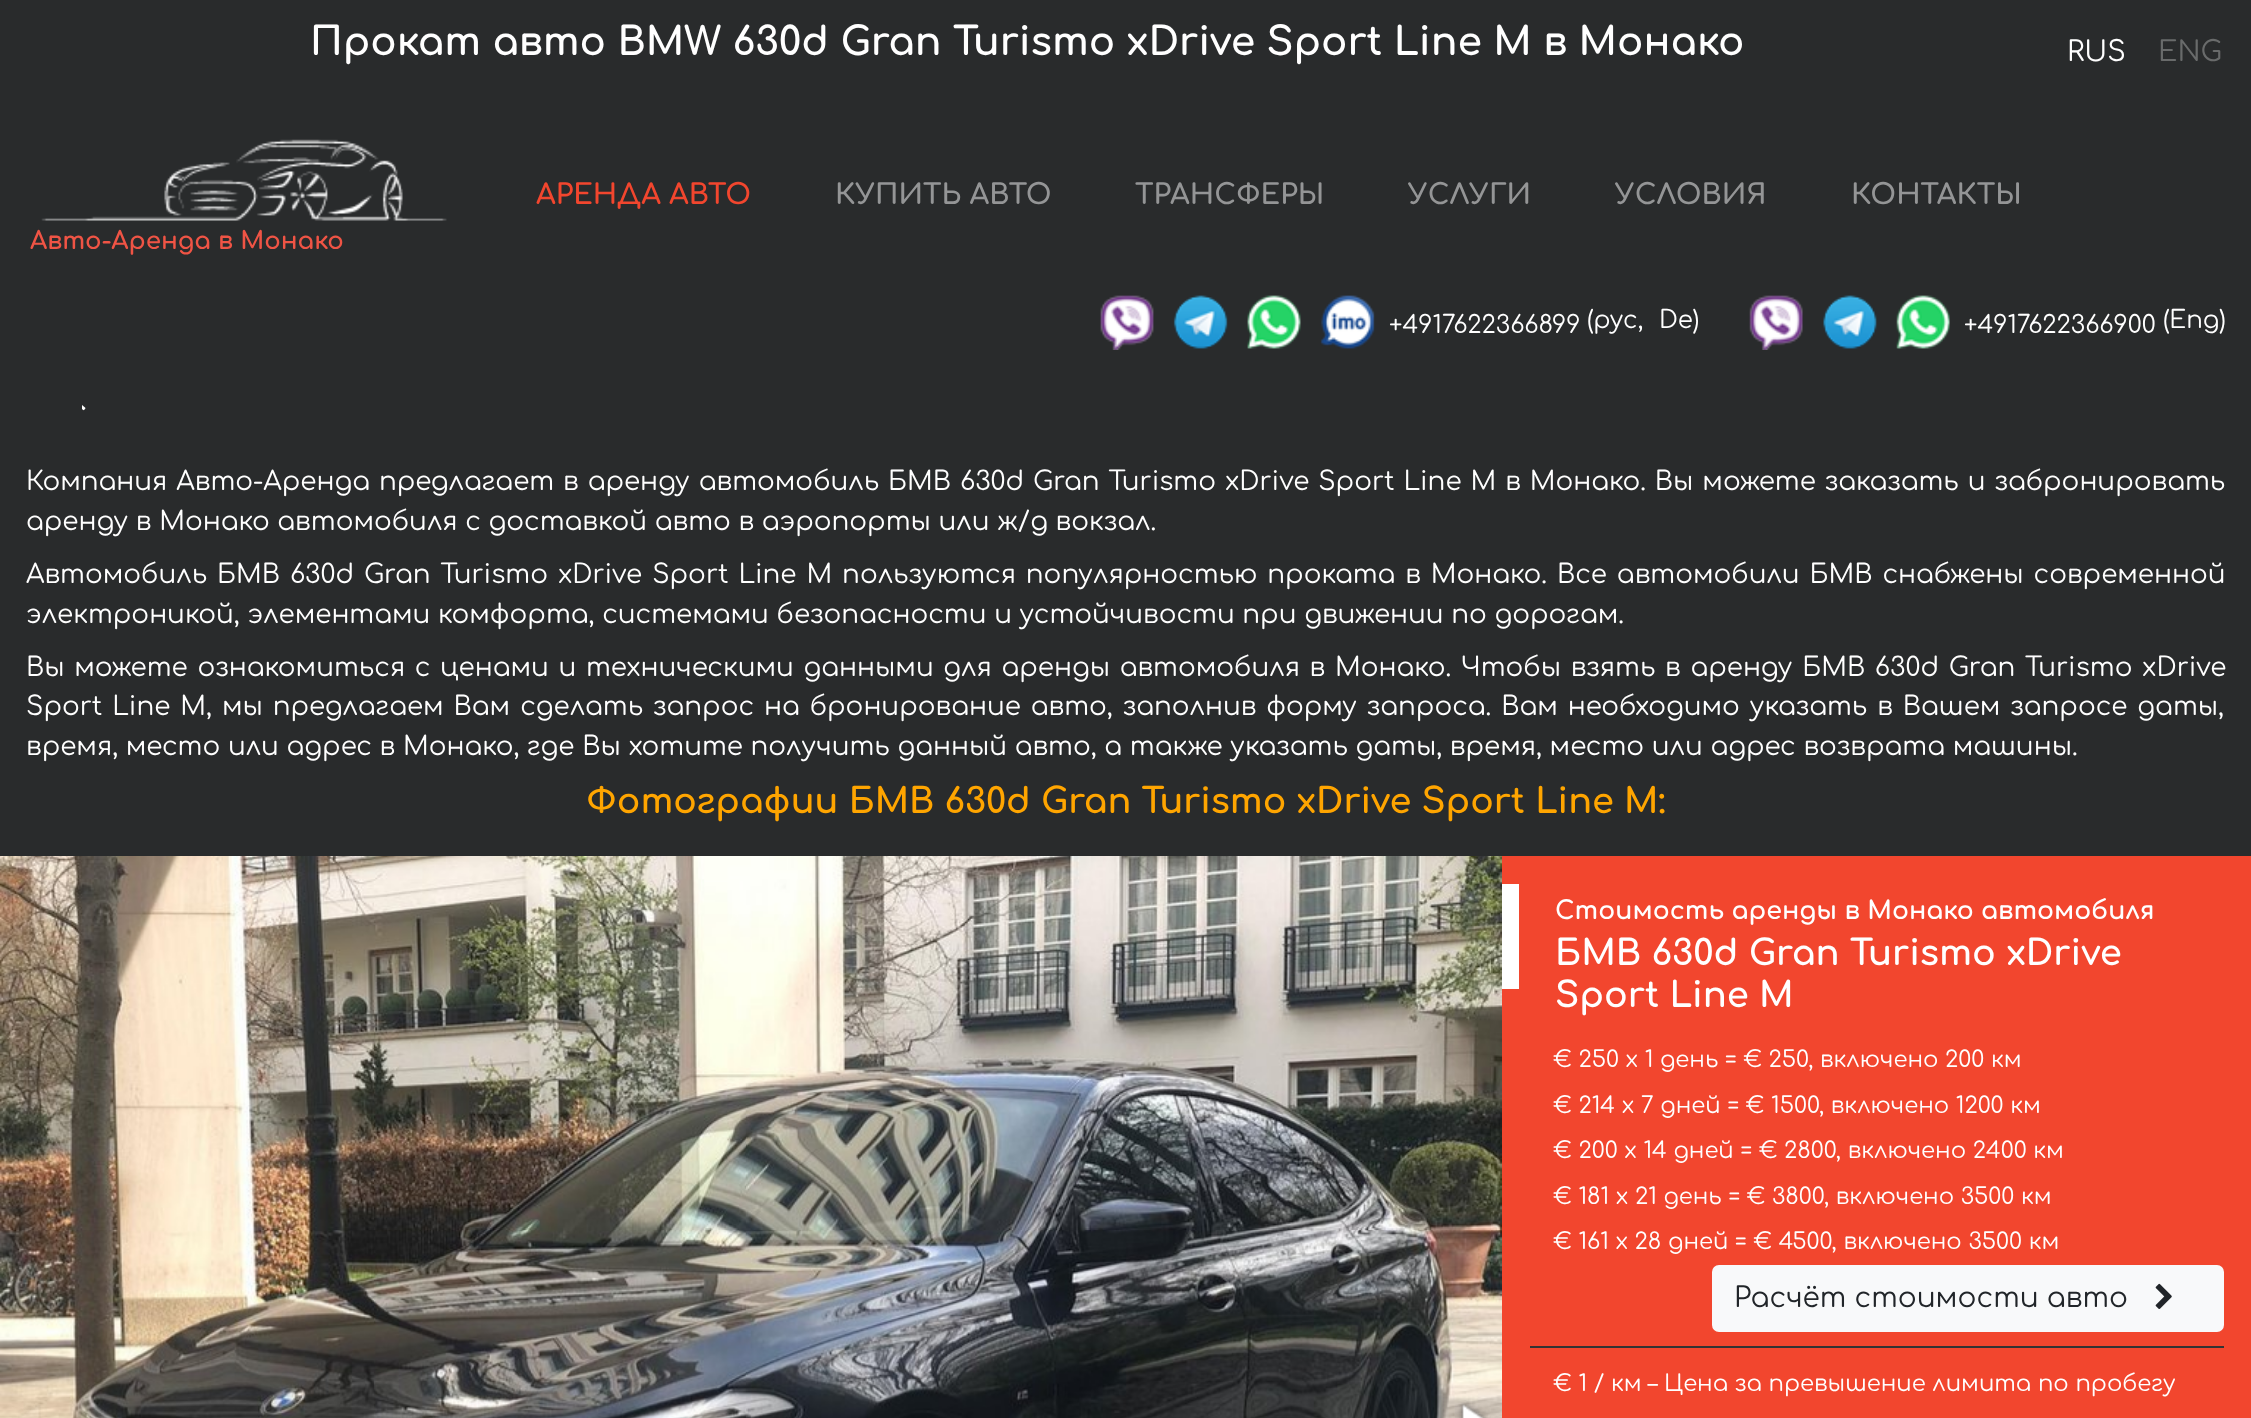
<!DOCTYPE html>
<meta charset="utf-8">
<style>body { margin: 0 } canvas { display: block }</style>
<canvas id="canvas" width="2251" height="1418"></canvas>
<script type="module">
  const canvas = document.getElementById("canvas");
  const ctx = canvas.getContext("2d");
  ctx.miterLimit = 4;
  ctx.fontKerning = "normal";
  async function loadImage(src) {
    const img = new Image();
    img.src = src;
    await img.decode();
    return img;
  }

  ctx.fillStyle = "#292b2c";
  ctx.fillRect(0, 0, 2251, 1418);
  ctx.font = "bold 39.2px Comfortaa";
  ctx.fillStyle = "#ffffff";
  ctx.fillText("Прокат авто BMW 630d Gran Turismo xDrive Sport Line М в Монако", 310, 55);
  ctx.font = "28px Comfortaa";
  ctx.fillText("RUS", 2067, 61);
  ctx.fillStyle = "#696b6b";
  ctx.fillText("ENG", 2158, 61);
  ctx.font = "bold 28px Comfortaa";
  ctx.fillStyle = "#f2462e";
  ctx.fillText("АРЕНДА АВТО", 536, 204);
  ctx.fillStyle = "#949596";
  ctx.fillText("КУПИТЬ АВТО", 835, 204);
  ctx.fillText("ТРАНСФЕРЫ", 1135, 204);
  ctx.fillText("УСЛУГИ", 1408, 204);
  ctx.fillText("УСЛОВИЯ", 1615, 204);
  ctx.fillText("КОНТАКТЫ", 1851, 204);
  ctx.drawImage(await loadImage("img1.png"), 41, 139, 406, 82);
  ctx.font = "bold 24.5px Comfortaa";
  ctx.fillStyle = "#ef5445";
  ctx.fillText("Авто-Аренда в Монако", 30, 249);
  ctx.drawImage(await loadImage("img2.png"), 1100, 295, 54, 55);
  ctx.drawImage(await loadImage("img3.png"), 1173, 295, 55, 54);
  ctx.drawImage(await loadImage("img4.png"), 1247, 295, 54, 54);
  ctx.drawImage(await loadImage("img5.png"), 1320, 295, 55, 54);
  ctx.font = "24.5px Comfortaa";
  ctx.fillStyle = "#ffffff";
  ctx.fillText("+4917622366899", 1389, 333);
  ctx.fillText("(рус,", 1587, 328);
  ctx.fillText("De)", 1659, 328);
  ctx.drawImage(await loadImage("img6.png"), 1749, 295, 54, 55);
  ctx.drawImage(await loadImage("img7.png"), 1823, 295, 54, 54);
  ctx.drawImage(await loadImage("img8.png"), 1896, 295, 54, 54);
  ctx.fillText("+4917622366900", 1964, 333);
  ctx.fillText("(Eng)", 2163, 328);
  ctx.drawImage(await loadImage("img9.png"), 82, 405, 4, 6);
  ctx.wordSpacing = "1.25px";
  ctx.font = "26.25px Comfortaa";
  ctx.fillText("Компания Авто-Аренда предлагает в аренду автомобиль БМВ 630d Gran Turismo xDrive Sport Line М в Монако. Вы можете заказать и забронировать", 26, 490);
  ctx.wordSpacing = "0px";
  ctx.fillText("аренду в Монако автомобиля с доставкой авто в аэропорты или ж/д вокзал.", 26, 530);
  ctx.wordSpacing = "2.25px";
  ctx.fillText("Автомобиль БМВ 630d Gran Turismo xDrive Sport Line М пользуются популярностью проката в Монако. Все автомобили БМВ снабжены современной", 26, 583);
  ctx.wordSpacing = "0px";
  ctx.fillText("электроникой, элементами комфорта, системами безопасности и устойчивости при движении по дорогам.", 26, 623);
  ctx.wordSpacing = "2px";
  ctx.fillText("Вы можете ознакомиться с ценами и техническими данными для аренды автомобиля в Монако. Чтобы взять в аренду БМВ 630d Gran Turismo xDrive", 26, 676);
  ctx.wordSpacing = "2.25px";
  ctx.fillText("Sport Line М, мы предлагаем Вам сделать запрос на бронирование авто, заполнив форму запроса. Вам необходимо указать в Вашем запросе даты,", 26, 715);
  ctx.wordSpacing = "0px";
  ctx.fillText("время, место или адрес в Монако, где Вы хотите получить данный авто, а также указать даты, время, место или адрес возврата машины.", 26, 755);
  ctx.font = "bold 35px Comfortaa";
  ctx.fillStyle = "#ffa500";
  ctx.fillText("Фотографии БМВ 630d Gran Turismo xDrive Sport Line М:", 586, 813);
  ctx.drawImage(await loadImage("img10.png"), 0, 856, 1502, 562);
  ctx.drawImage(await loadImage("img11.png"), 18, 1405, 23, 13);
  ctx.drawImage(await loadImage("img12.png"), 1455, 1400, 33, 18);
  ctx.fillStyle = "#f2462e";
  ctx.fillRect(1502, 856, 749, 562);
  ctx.fillStyle = "#ffffff";
  ctx.fillRect(1502, 884, 17, 105);
  ctx.font = "bold 25.2px Comfortaa";
  ctx.fillText("Стоимость аренды в Монако автомобиля", 1555, 919);
  ctx.font = "bold 35.25px Comfortaa";
  ctx.fillText("БМВ 630d Gran Turismo xDrive", 1555, 965);
  ctx.fillText("Sport Line М", 1555, 1007);
  ctx.font = "22.75px Comfortaa";
  ctx.fillText("€ 250 х 1 день = € 250, включено 200 км", 1553, 1067);
  ctx.fillText("€ 214 х 7 дней = € 1500, включено 1200 км", 1553, 1113);
  ctx.fillText("€ 200 х 14 дней = € 2800, включено 2400 км", 1553, 1158);
  ctx.fillText("€ 181 х 21 день = € 3800, включено 3500 км", 1553, 1204);
  ctx.fillText("€ 161 х 28 дней = € 4500, включено 3500 км", 1553, 1249);
  ctx.fillStyle = "#f8f9fa";
  ctx.beginPath();
  ctx.roundRect(1713, 1266, 510, 65, 6);
  ctx.fill();
  ctx.strokeStyle = "#f8f9fa";
  ctx.lineWidth = 2;
  ctx.stroke();
  ctx.font = "28px Comfortaa";
  ctx.fillStyle = "#212529";
  ctx.fillText("Расчёт стоимости авто", 1734, 1307);
  ctx.drawImage(await loadImage("img13.png"), 2155, 1283, 17, 26);
  ctx.fillStyle = "#333333";
  ctx.fillRect(1530, 1346, 694, 2);
  ctx.font = "22.75px Comfortaa";
  ctx.fillStyle = "#ffffff";
  ctx.fillText("€ 1 / км – Цена за превышение лимита по пробегу", 1553, 1391);
</script>
